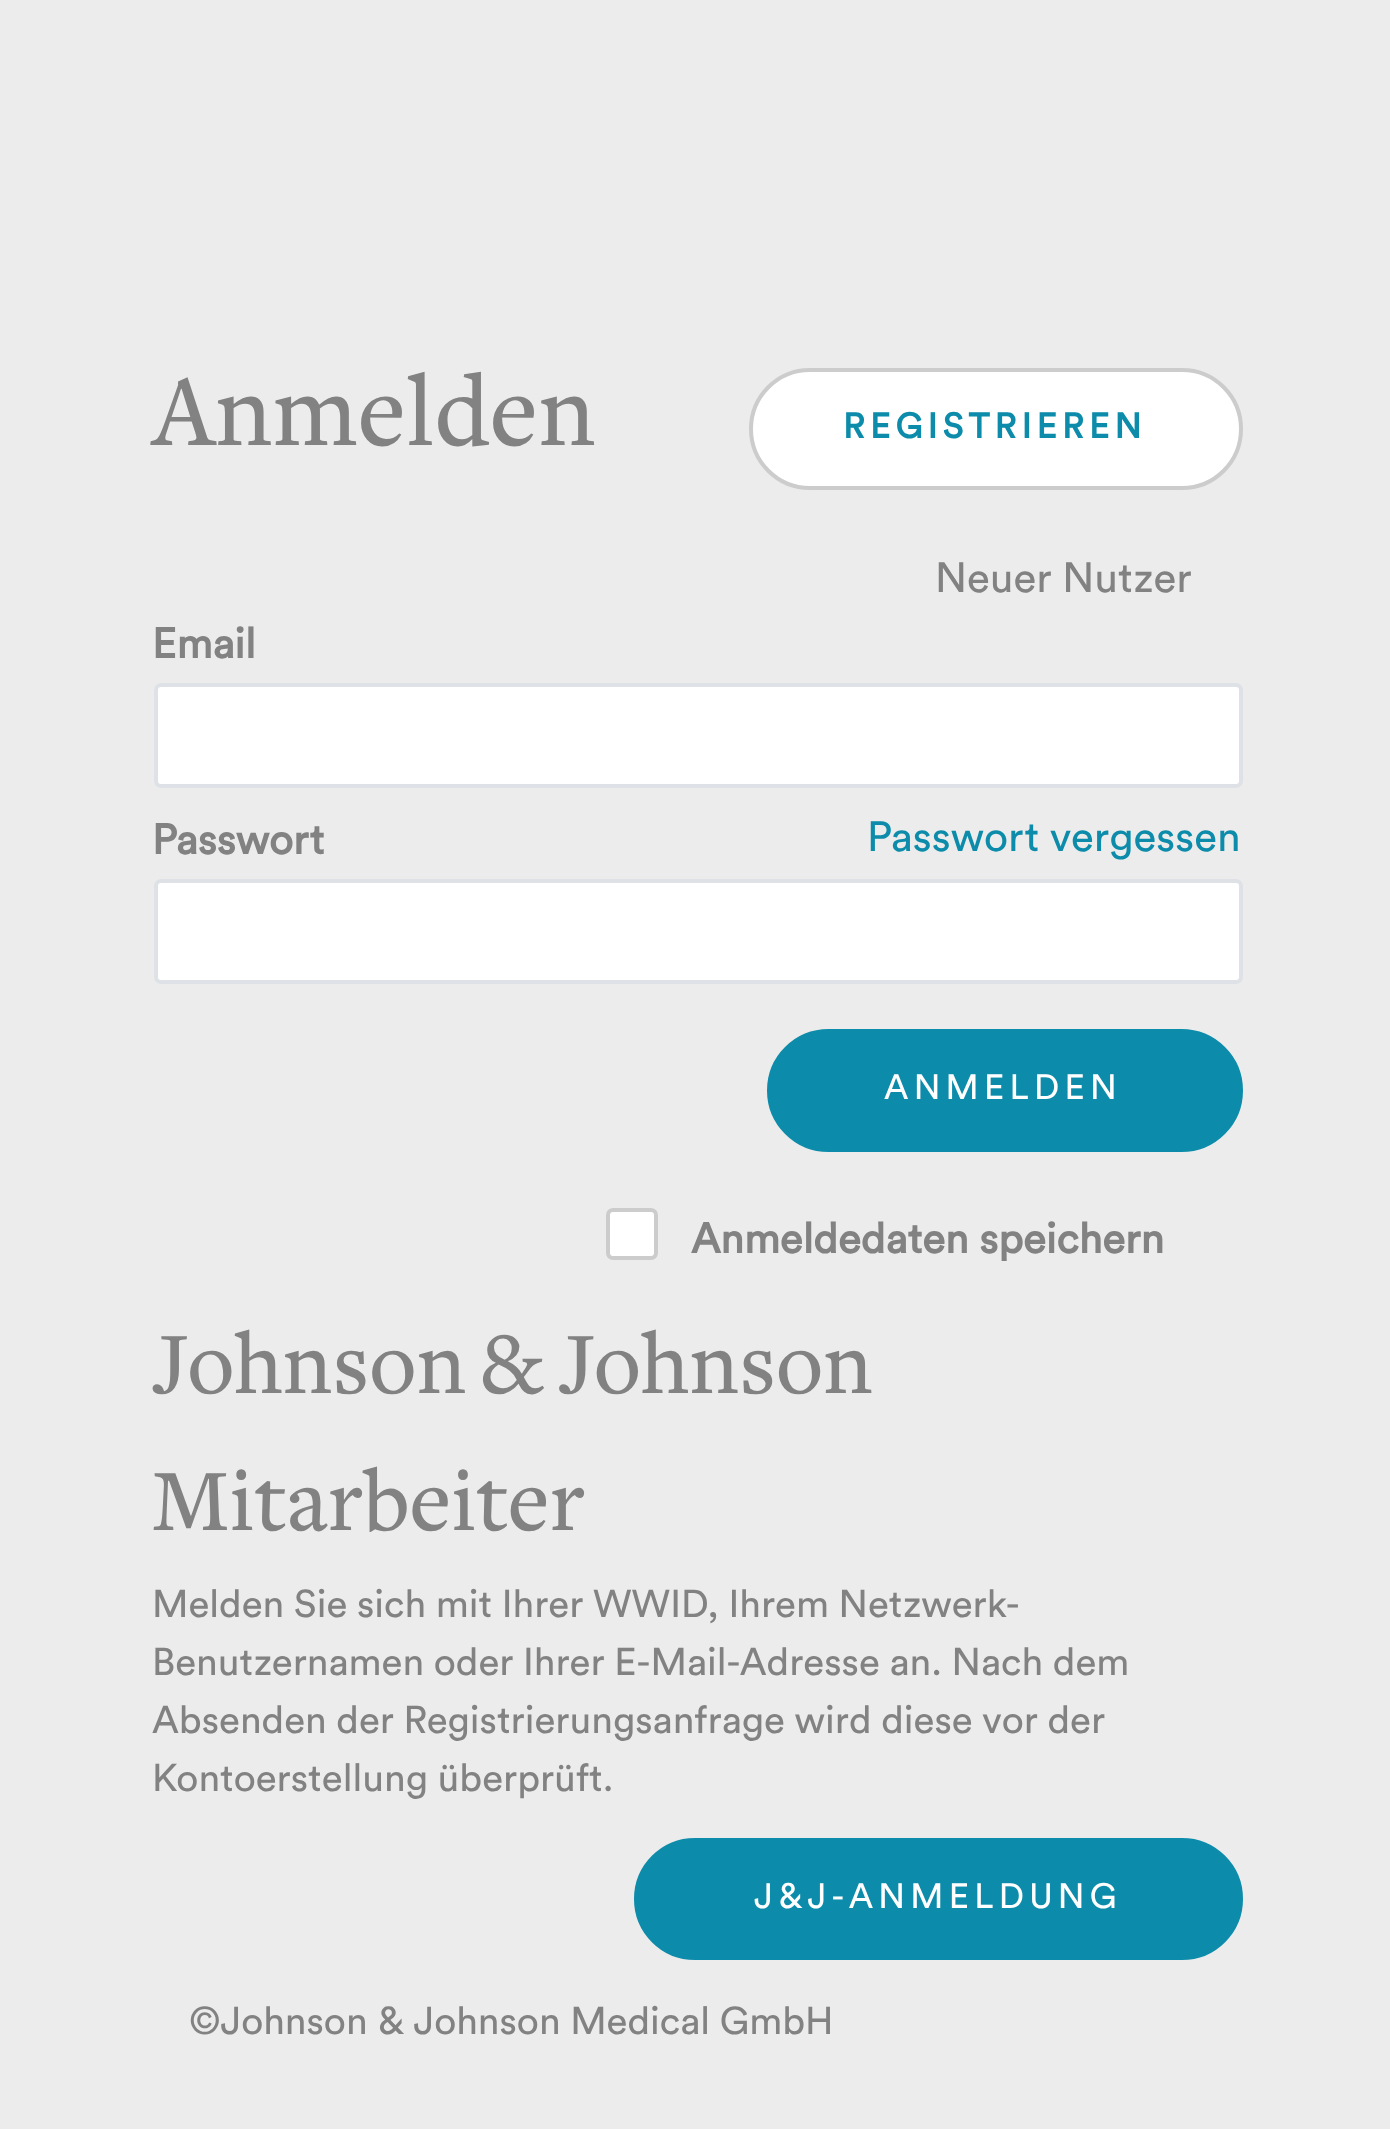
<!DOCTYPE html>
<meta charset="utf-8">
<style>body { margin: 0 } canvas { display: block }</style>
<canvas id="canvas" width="1390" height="2129"></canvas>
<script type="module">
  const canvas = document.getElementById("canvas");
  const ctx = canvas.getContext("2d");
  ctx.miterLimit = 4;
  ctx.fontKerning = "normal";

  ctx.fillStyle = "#ececec";
  ctx.fillRect(0, 0, 1390, 2129);
  ctx.font = "500 105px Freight";
  ctx.fillStyle = "#828282";
  ctx.fillText("Anmelden", 152, 445);
  ctx.fillStyle = "#ffffff";
  ctx.beginPath();
  ctx.roundRect(751, 370, 490, 118, 59);
  ctx.fill();
  ctx.strokeStyle = "#cccccc";
  ctx.lineWidth = 4;
  ctx.stroke();
  ctx.letterSpacing = "5.25px";
  ctx.font = "bold 35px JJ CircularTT";
  ctx.fillStyle = "#0c8caa";
  ctx.fillText("REGISTRIEREN", 843, 438);
  ctx.letterSpacing = "0px";
  ctx.font = "42px JJ CircularTT";
  ctx.fillStyle = "#828282";
  ctx.fillText("Neuer Nutzer", 935, 592);
  ctx.font = "bold 42px JJ CircularTT";
  ctx.fillText("Email", 152, 658);
  ctx.fillStyle = "#ffffff";
  ctx.beginPath();
  ctx.roundRect(156, 685, 1085, 101, 5);
  ctx.fill();
  ctx.strokeStyle = "#dee2e6";
  ctx.stroke();
  ctx.fillStyle = "#828282";
  ctx.fillText("Passwort", 152, 854);
  ctx.font = "42px JJ CircularTT";
  ctx.fillStyle = "#0c8caa";
  ctx.fillText("Passwort vergessen", 867, 851);
  ctx.fillStyle = "#ffffff";
  ctx.beginPath();
  ctx.roundRect(156, 881, 1085, 101, 5);
  ctx.fill();
  ctx.stroke();
  ctx.fillStyle = "#0c8caa";
  ctx.beginPath();
  ctx.roundRect(769, 1031, 472, 119, 59.5);
  ctx.fill();
  ctx.strokeStyle = "#0c8caa";
  ctx.stroke();
  ctx.letterSpacing = "5.25px";
  ctx.font = "35px JJ CircularTT";
  ctx.fillStyle = "#ffffff";
  ctx.fillText("ANMELDEN", 884, 1099);
  ctx.beginPath();
  ctx.roundRect(608, 1210, 48, 48, 5);
  ctx.fill();
  ctx.strokeStyle = "#cccccc";
  ctx.stroke();
  ctx.letterSpacing = "0px";
  ctx.font = "bold 42px JJ CircularTT";
  ctx.fillStyle = "#828282";
  ctx.fillText("Anmeldedaten speichern", 691, 1253);
  ctx.font = "500 91px Freight";
  ctx.fillText("Johnson & Johnson", 152, 1393);
  ctx.fillText("Mitarbeiter", 152, 1530);
  ctx.font = "38.5px JJ CircularTT";
  ctx.fillText("Melden Sie sich mit Ihrer WWID, Ihrem Netzwerk-", 152, 1617);
  ctx.fillText("Benutzernamen oder Ihrer E-Mail-Adresse an. Nach dem", 152, 1675);
  ctx.fillText("Absenden der Registrierungsanfrage wird diese vor der", 152, 1733);
  ctx.fillText("Kontoerstellung überprüft.", 152, 1791);
  ctx.fillStyle = "#0c8caa";
  ctx.beginPath();
  ctx.roundRect(636, 1840, 605, 118, 59);
  ctx.fill();
  ctx.strokeStyle = "#0c8caa";
  ctx.stroke();
  ctx.letterSpacing = "5.25px";
  ctx.font = "35px JJ CircularTT";
  ctx.fillStyle = "#ffffff";
  ctx.fillText("J&J-ANMELDUNG", 754, 1908);
  ctx.letterSpacing = "0px";
  ctx.font = "38.5px JJ CircularTT";
  ctx.fillStyle = "#828282";
  ctx.fillText("©Johnson & Johnson Medical GmbH", 189, 2034);
</script>
